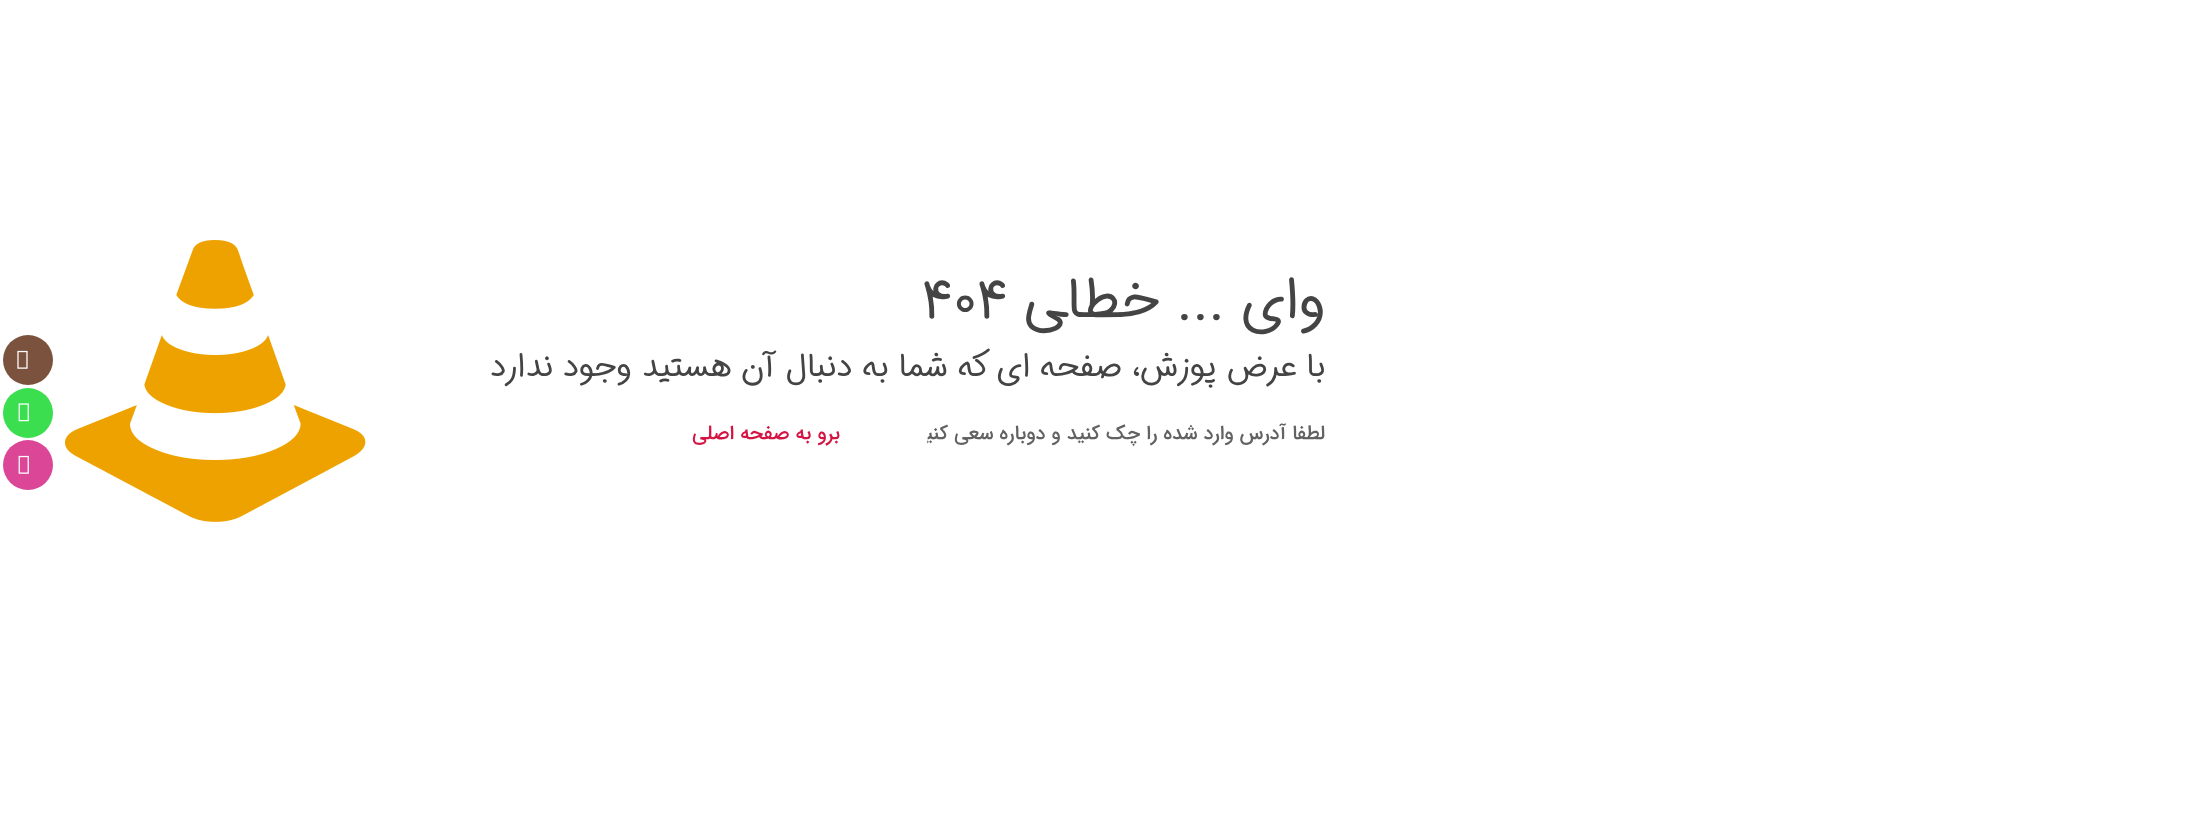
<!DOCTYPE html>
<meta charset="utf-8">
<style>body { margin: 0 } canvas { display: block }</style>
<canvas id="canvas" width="2203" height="823"></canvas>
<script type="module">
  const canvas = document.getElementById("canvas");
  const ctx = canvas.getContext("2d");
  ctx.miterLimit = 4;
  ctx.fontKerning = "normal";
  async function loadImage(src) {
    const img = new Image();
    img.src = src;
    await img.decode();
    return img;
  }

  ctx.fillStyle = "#ffffff";
  ctx.fillRect(0, 0, 2203, 823);
  ctx.direction = "rtl";
  ctx.font = "56.25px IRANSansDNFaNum";
  ctx.fillStyle = "#444444";
  ctx.fillText("وای ... خطا‍ی", 1325, 317);
  ctx.direction = "ltr";
  ctx.fillText("404", 922, 317);
  ctx.direction = "rtl";
  ctx.font = "32.5px IRANSansDNFaNum";
  ctx.fillText("با عرض پوزش، صفحه ای که شما به دنبال آن هستید وجود ندارد", 1325, 376);
  ctx.font = "500 20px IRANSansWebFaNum";
  ctx.fillStyle = "#626262";
  ctx.fillText("لطفا آدرس وارد شده را چک کنید و دوباره سعی کنید", 1325, 439);
  ctx.fillStyle = "#ffffff";
  ctx.beginPath();
  ctx.roundRect(649, 394, 279, 81, [0, 40.5, 40.5, 0]);
  ctx.fill();
  ctx.fillStyle = "#d41442";
  ctx.fillText("برو به صفحه اصلی", 840, 439);
  ctx.drawImage(await loadImage("img1.png"), 65, 240, 301, 282);
  ctx.fillStyle = "#7b523d";
  ctx.beginPath();
  ctx.arc(28, 360, 25, 0, Math.PI * 2);
  ctx.fill();
  ctx.drawImage(await loadImage("img2.png"), 17, 350, 11, 19);
  ctx.fillStyle = "#3ade4e";
  ctx.beginPath();
  ctx.arc(28, 413, 25, 0, Math.PI * 2);
  ctx.fill();
  ctx.drawImage(await loadImage("img3.png"), 18, 403, 11, 19);
  ctx.fillStyle = "#dc4696";
  ctx.beginPath();
  ctx.arc(28, 465, 25, 0, Math.PI * 2);
  ctx.fill();
  ctx.drawImage(await loadImage("img4.png"), 18, 455, 11, 19);
</script>
